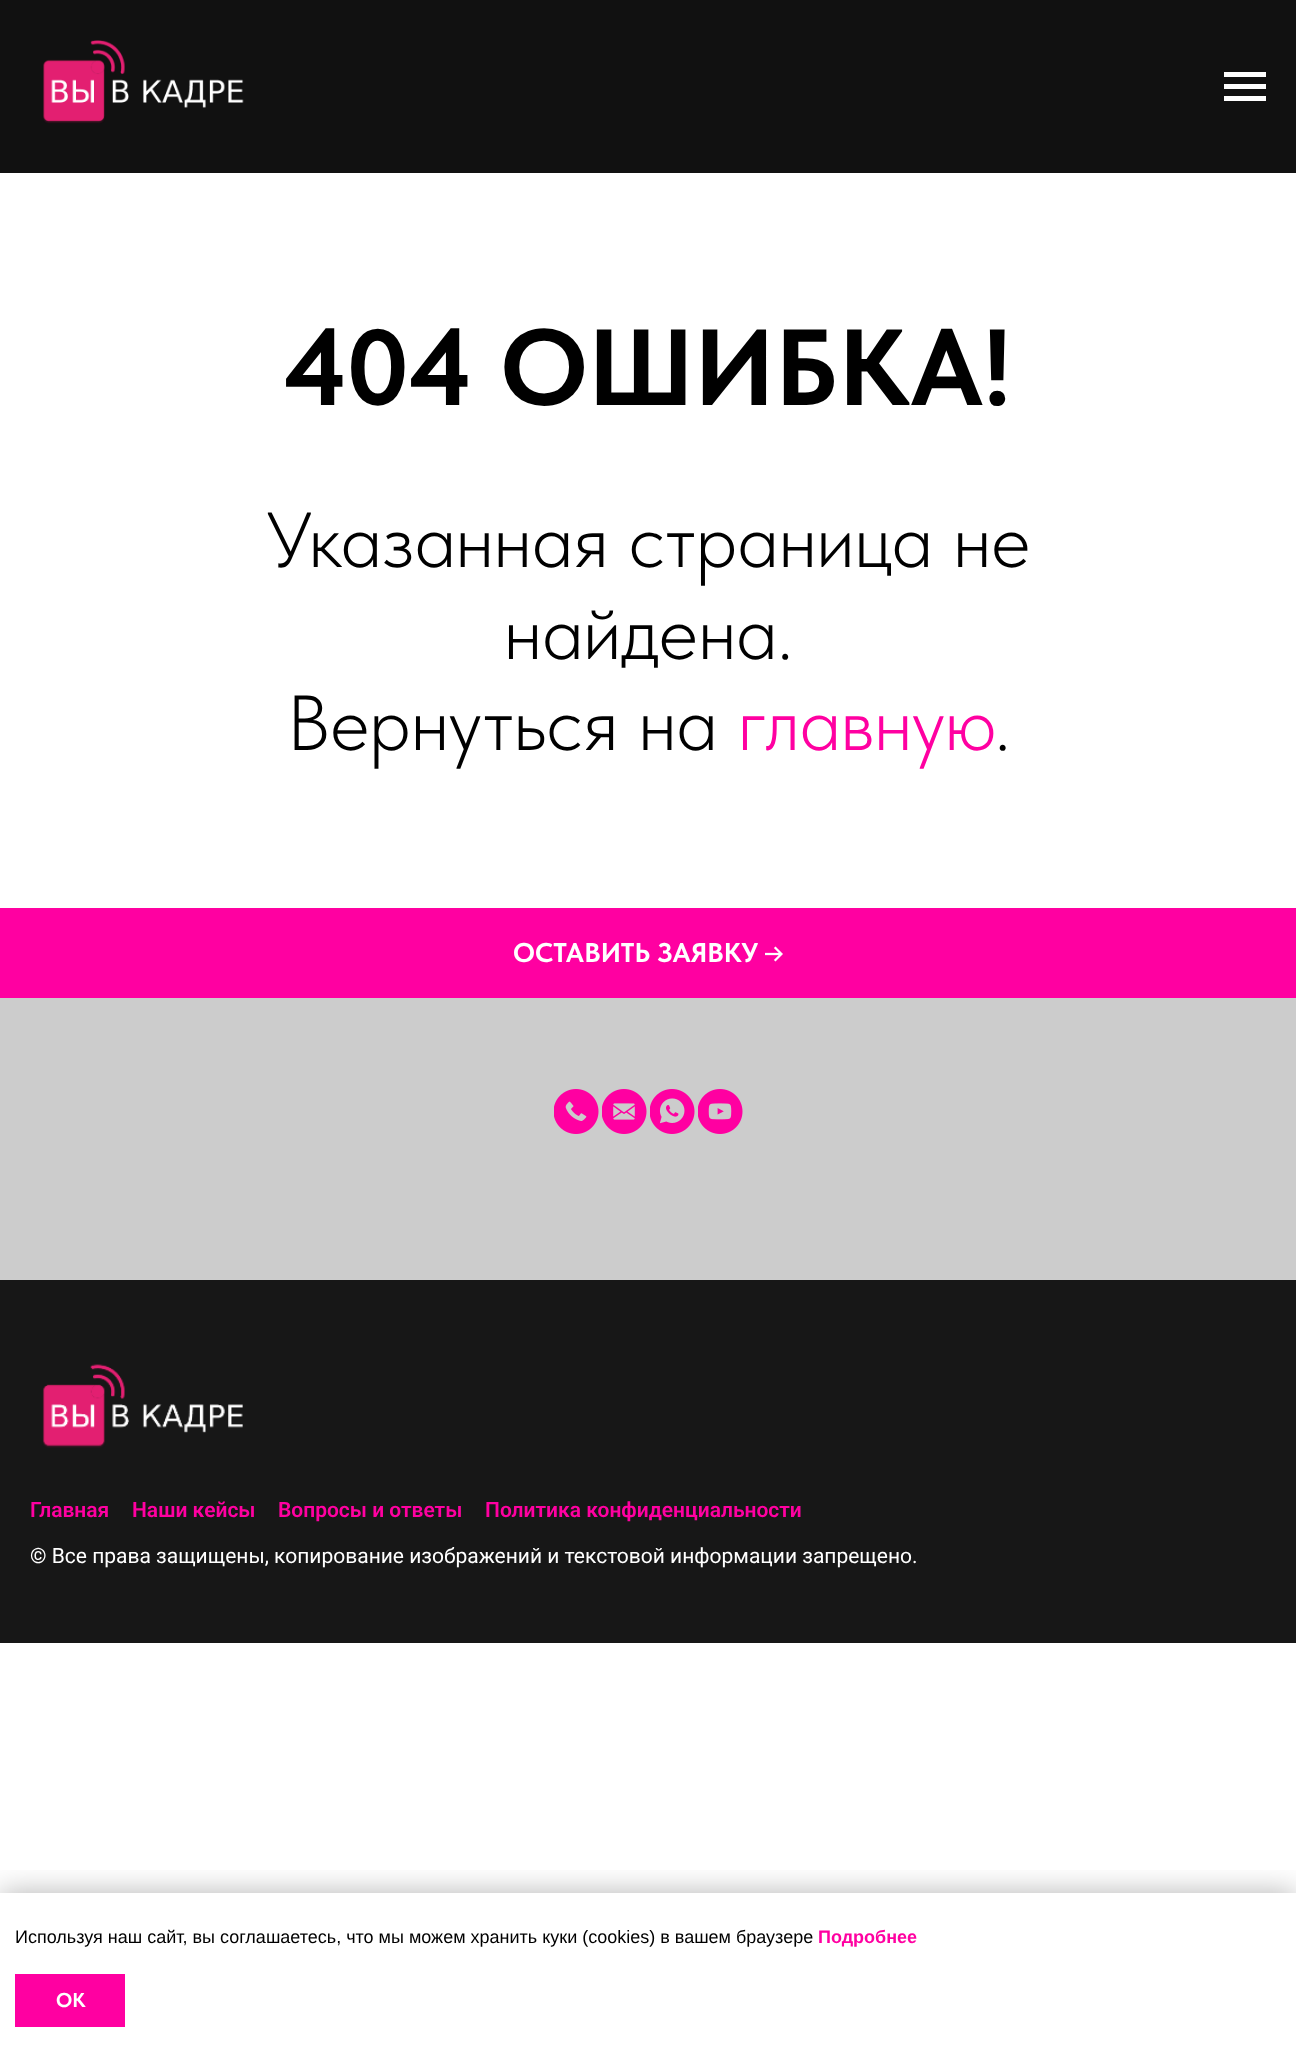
<!DOCTYPE html>
<meta charset="utf-8">
<style>body { margin: 0 } canvas { display: block }</style>
<canvas id="canvas" width="1296" height="2062"></canvas>
<script type="module">
  const canvas = document.getElementById("canvas");
  const ctx = canvas.getContext("2d");
  ctx.miterLimit = 4;
  ctx.fontKerning = "normal";
  async function loadImage(src) {
    const img = new Image();
    img.src = src;
    await img.decode();
    return img;
  }

  ctx.fillStyle = "#ffffff";
  ctx.fillRect(0, 0, 1296, 2062);
  ctx.fillStyle = "#111111";
  ctx.fillRect(0, 0, 1296, 173);
  ctx.drawImage(await loadImage("img1.png"), 43, 40, 201, 84);
  ctx.fillStyle = "#ffffff";
  ctx.fillRect(1224, 72, 42, 5);
  ctx.fillRect(1224, 84, 42, 5);
  ctx.fillRect(1224, 96, 42, 5);
  ctx.font = "bold 108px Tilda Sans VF";
  ctx.fillStyle = "#000000";
  ctx.fillText("404 ОШИБКА!", 284, 405);
  ctx.font = "300 78px Tilda Sans VF";
  ctx.fillText("Указанная страница не", 266, 567);
  ctx.fillText("найдена.", 504, 659);
  ctx.fillText("Вернуться на", 286, 750);
  ctx.fillStyle = "#ff00a1";
  ctx.fillText("главную", 738, 750);
  ctx.fillStyle = "#000000";
  ctx.fillText(".", 995, 750);
  ctx.fillStyle = "#ff00a1";
  ctx.fillRect(0, 908, 1296, 90);
  ctx.font = "bold 27px Tilda Sans VF";
  ctx.fillStyle = "#ffffff";
  ctx.fillText("ОСТАВИТЬ ЗАЯВКУ", 513, 962);
  ctx.drawImage(await loadImage("img2.png"), 765, 946, 18, 16);
  ctx.fillStyle = "#cccccc";
  ctx.fillRect(0, 998, 1296, 282);
  ctx.drawImage(await loadImage("img3.png"), 554, 1089, 45, 45);
  ctx.drawImage(await loadImage("img4.png"), 602, 1089, 45, 45);
  ctx.drawImage(await loadImage("img5.png"), 650, 1089, 45, 45);
  ctx.drawImage(await loadImage("img6.png"), 698, 1089, 45, 45);
  ctx.fillStyle = "#171717";
  ctx.fillRect(0, 1280, 1296, 363);
  ctx.drawImage(await loadImage("img7.png"), 42, 1364, 201, 84);
  ctx.font = "600 21px Roboto";
  ctx.fillStyle = "#ff00a1";
  ctx.fillText("Главная", 30, 1517);
  ctx.fillText("Наши кейсы", 132, 1517);
  ctx.fillText("Вопросы и ответы", 278, 1517);
  ctx.fillText("Политика конфиденциальности", 485, 1517);
  ctx.font = "21px Roboto";
  ctx.fillStyle = "#ffffff";
  ctx.fillText("© Все права защищены, копирование изображений и текстовой информации запрещено.", 30, 1563);
  ctx.save();
  ctx.beginPath();
  ctx.rect(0, 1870, 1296, 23);
  ctx.clip();
  ctx.fillStyle = "rgba(0, 0, 0, 0.3)";
  ctx.filter = "blur(15px)";
  ctx.beginPath();
  ctx.rect(0, 1893, 1296, 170);
  ctx.fill();
  ctx.filter = "none";
  ctx.restore();
  ctx.font = "18px Liberation Sans";
  ctx.fillStyle = "#000000";
  ctx.fillText("Используя наш сайт, вы соглашаетесь, что мы можем хранить куки (cookies) в вашем браузере", 15, 1943);
  ctx.font = "bold 18px Liberation Sans";
  ctx.fillStyle = "#ff00a1";
  ctx.fillText("Подробнее", 818, 1943);
  ctx.fillRect(15, 1974, 110, 53);
  ctx.font = "bold 20px Tilda Sans VF";
  ctx.fillStyle = "#ffffff";
  ctx.fillText("ОК", 56, 2007);
</script>
